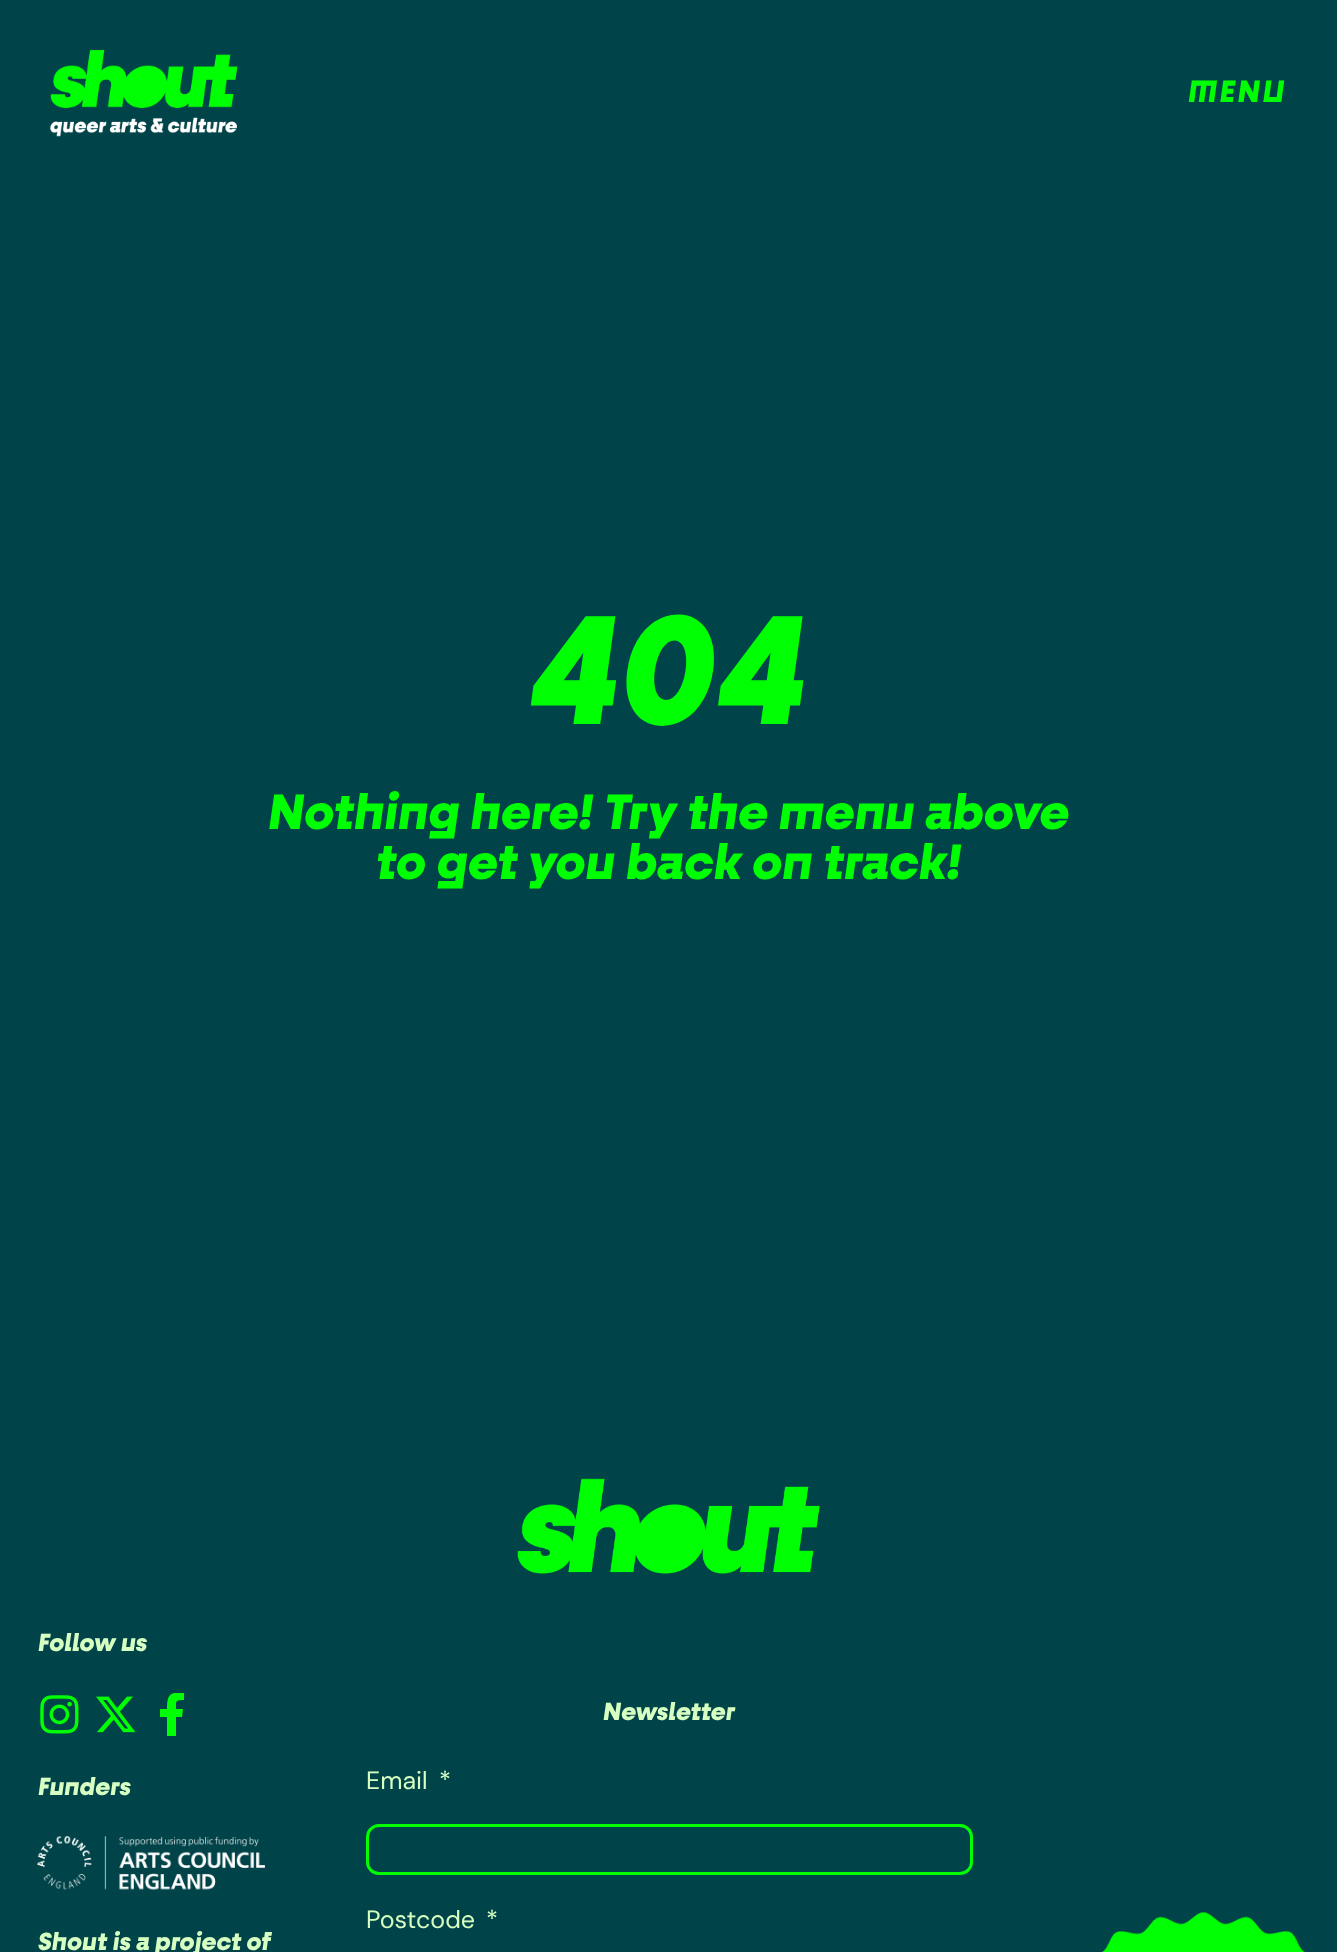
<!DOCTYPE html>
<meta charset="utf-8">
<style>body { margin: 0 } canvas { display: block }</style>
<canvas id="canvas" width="1337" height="1952"></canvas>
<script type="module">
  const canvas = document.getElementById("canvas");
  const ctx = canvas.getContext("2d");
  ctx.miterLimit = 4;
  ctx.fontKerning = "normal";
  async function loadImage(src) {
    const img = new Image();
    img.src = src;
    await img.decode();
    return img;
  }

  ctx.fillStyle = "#004449";
  ctx.fillRect(0, 0, 1337, 1952);
  ctx.drawImage(await loadImage("img1.png"), 50, 50, 188, 87);
  ctx.letterSpacing = "2.5px";
  ctx.font = "italic 800 31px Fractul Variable";
  ctx.fillStyle = "#00ff03";
  ctx.fillText("MENU", 1188, 102);
  ctx.letterSpacing = "0px";
  ctx.font = "italic 800 156px Fractul Variable";
  ctx.fillText("404", 530, 724);
  ctx.font = "italic 800 50px Fractul Variable";
  ctx.fillText("Nothing here! Try the menu above", 268, 829);
  ctx.fillText("to get you back on track!", 376, 879);
  ctx.drawImage(await loadImage("img2.png"), 1101, 1912, 205, 40);
  ctx.font = "italic 800 25px Fractul Variable";
  ctx.fillStyle = "#d7ffc2";
  ctx.fillText("Follow us", 38, 1651);
  ctx.drawImage(await loadImage("img3.png"), 40, 1695, 39, 39);
  ctx.drawImage(await loadImage("img4.png"), 96, 1696, 40, 37);
  ctx.save();
  ctx.beginPath();
  ctx.rect(150, 1693, 44, 43);
  ctx.clip();
  ctx.fillStyle = "#00ff03";
  ctx.beginPath();
  ctx.moveTo(182, 1717);
  ctx.lineTo(183, 1709);
  ctx.lineTo(176, 1709);
  ctx.bezierCurveTo(176, 1701, 175, 1700, 184, 1700);
  ctx.lineTo(184, 1693);
  ctx.bezierCurveTo(169, 1691, 167, 1696, 167, 1709);
  ctx.lineTo(160, 1709);
  ctx.lineTo(160, 1717);
  ctx.lineTo(167, 1717);
  ctx.lineTo(167, 1736);
  ctx.lineTo(176, 1736);
  ctx.lineTo(176, 1717);
  ctx.closePath();
  ctx.fill();
  ctx.restore();
  ctx.fillText("Funders", 38, 1795);
  ctx.drawImage(await loadImage("img5.png"), 37, 1836, 228, 54);
  ctx.fillText("Shout is a project of", 38, 1950);
  ctx.drawImage(await loadImage("img6.png"), 517, 1478, 303, 96);
  ctx.fillText("Newsletter", 603, 1720);
  ctx.font = "25px DM Sans";
  ctx.fillText("Email", 366, 1789);
  ctx.fillText("*", 439, 1789);
  ctx.beginPath();
  ctx.roundRect(367.5, 1825.5, 604, 48, 11.5);
  ctx.strokeStyle = "#00ff03";
  ctx.lineWidth = 3;
  ctx.stroke();
  ctx.fillText("Postcode", 366, 1928);
  ctx.fillText("*", 486, 1928);
</script>
